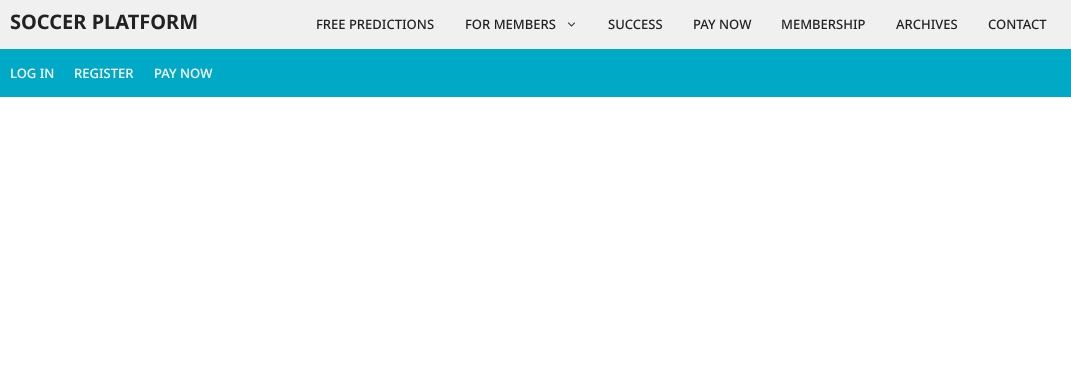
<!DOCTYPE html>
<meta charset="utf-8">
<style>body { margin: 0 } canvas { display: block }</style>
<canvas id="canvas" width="1071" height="382"></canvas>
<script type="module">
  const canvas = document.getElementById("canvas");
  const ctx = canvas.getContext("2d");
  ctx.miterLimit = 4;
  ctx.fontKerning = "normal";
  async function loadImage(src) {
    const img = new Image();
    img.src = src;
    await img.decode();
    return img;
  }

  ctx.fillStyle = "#ffffff";
  ctx.fillRect(0, 0, 1071, 382);
  ctx.fillStyle = "#f0f0f0";
  ctx.fillRect(0, 0, 1071, 49);
  ctx.font = "bold 20px Noto Sans";
  ctx.fillStyle = "#222222";
  ctx.fillText("SOCCER PLATFORM", 10, 29);
  ctx.font = "500 13px Noto Sans";
  ctx.fillText("FREE PREDICTIONS", 316, 29);
  ctx.fillText("FOR MEMBERS", 465, 29);
  ctx.drawImage(await loadImage("img1.png"), 568, 22, 7, 5);
  ctx.fillText("SUCCESS", 608, 29);
  ctx.fillText("PAY NOW", 693, 29);
  ctx.fillText("MEMBERSHIP", 781, 29);
  ctx.fillText("ARCHIVES", 896, 29);
  ctx.fillText("CONTACT", 988, 29);
  ctx.fillStyle = "#00aac6";
  ctx.fillRect(0, 49, 1071, 48);
  ctx.fillStyle = "#ffffff";
  ctx.fillText("LOG IN", 10, 78);
  ctx.fillText("REGISTER", 74, 78);
  ctx.fillText("PAY NOW", 154, 78);
</script>
